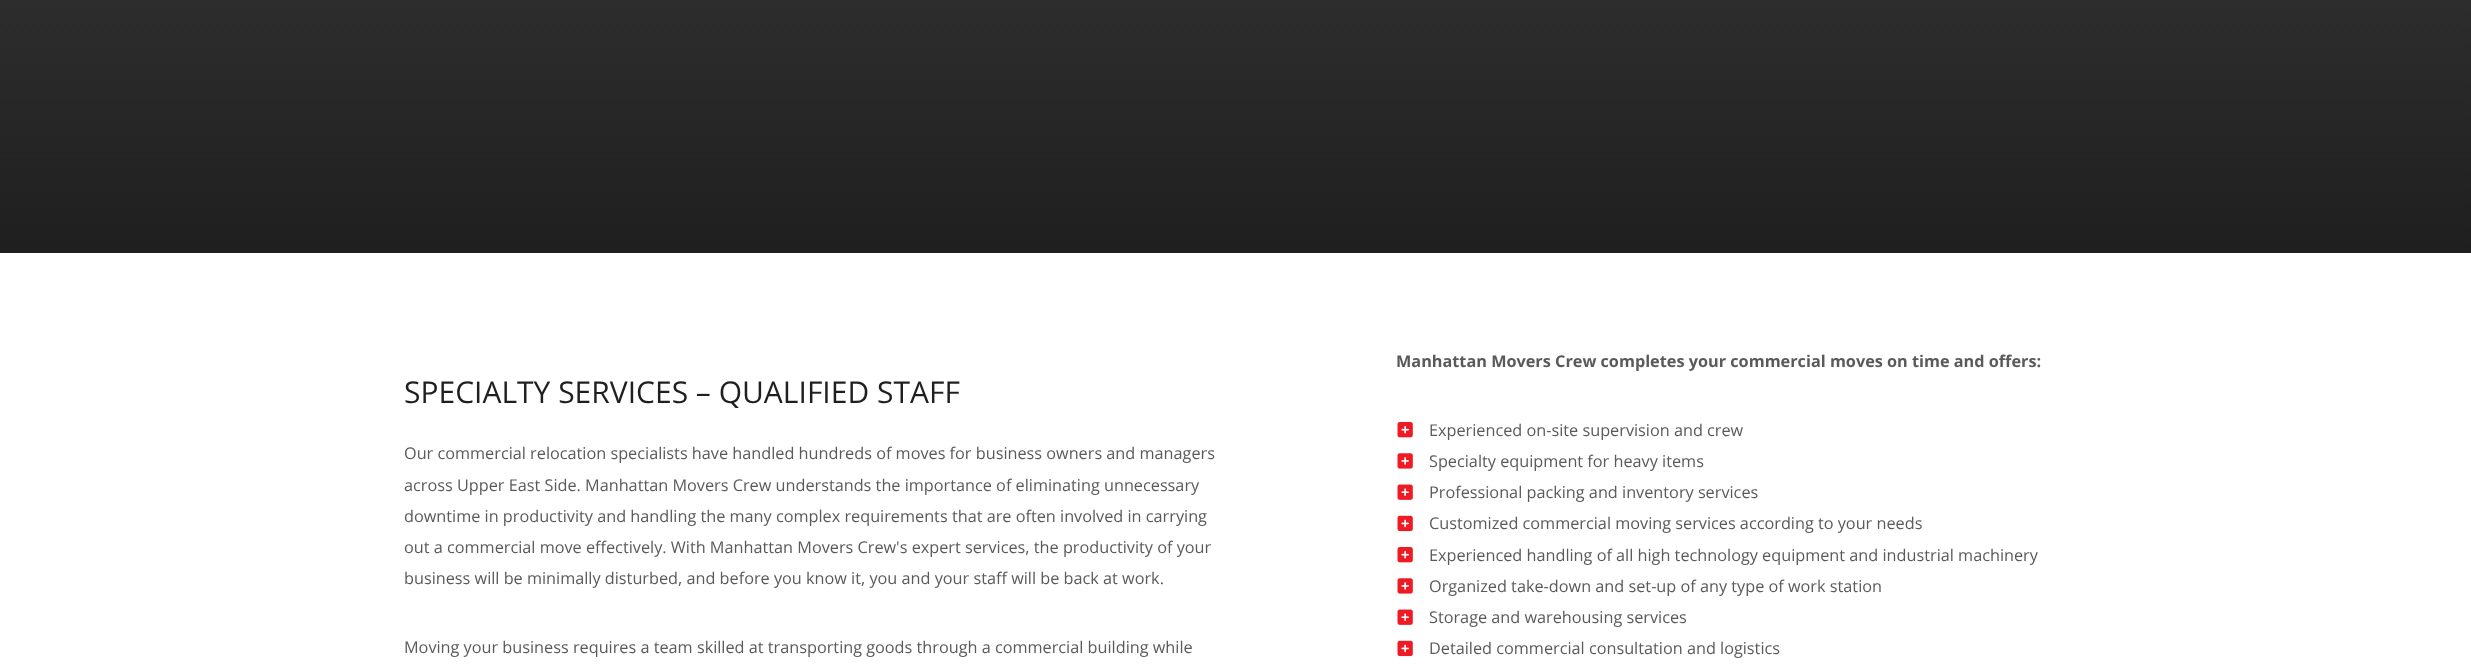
<!DOCTYPE html>
<meta charset="utf-8">
<style>body { margin: 0 } canvas { display: block }</style>
<canvas id="canvas" width="2471" height="667"></canvas>
<script type="module">
  const canvas = document.getElementById("canvas");
  const ctx = canvas.getContext("2d");
  ctx.miterLimit = 4;
  ctx.fontKerning = "normal";
  async function loadImage(src) {
    const img = new Image();
    img.src = src;
    await img.decode();
    return img;
  }
  let gradient;

  ctx.fillStyle = "#ffffff";
  ctx.fillRect(0, 0, 2471, 667);
  gradient = ctx.createLinearGradient(1236, -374, 1236, 253);
  gradient.addColorStop(0, "#424242");
  gradient.addColorStop(1, "#201f20");
  ctx.fillStyle = gradient;
  ctx.fillRect(0, 0, 2471, 253);
  ctx.font = "30px Open Sans";
  ctx.fillStyle = "#201f20";
  ctx.fillText("SPECIALTY SERVICES – QUALIFIED STAFF", 404, 403);
  ctx.font = "16.25px Open Sans";
  ctx.fillStyle = "#5a5a5a";
  ctx.fillText("Our commercial relocation specialists have handled hundreds of moves for business owners and managers", 404, 459);
  ctx.fillText("across Upper East Side. Manhattan Movers Crew understands the importance of eliminating unnecessary", 404, 491);
  ctx.fillText("downtime in productivity and handling the many complex requirements that are often involved in carrying", 404, 522);
  ctx.fillText("out a commercial move effectively. With Manhattan Movers Crew's expert services, the productivity of your", 404, 553);
  ctx.fillText("business will be minimally disturbed, and before you know it, you and your staff will be back at work.", 404, 584);
  ctx.fillText("Moving your business requires a team skilled at transporting goods through a commercial building while", 404, 653);
  ctx.font = "bold 16.25px Open Sans";
  ctx.fillText("Manhattan Movers Crew completes your commercial moves on time and offers:", 1396, 367);
  ctx.drawImage(await loadImage("img1.png"), 1397, 422, 16, 16);
  ctx.font = "16.25px Open Sans";
  ctx.fillText("Experienced on-site supervision and crew", 1429, 436);
  ctx.drawImage(await loadImage("img2.png"), 1397, 453, 16, 16);
  ctx.fillText("Specialty equipment for heavy items", 1429, 467);
  ctx.drawImage(await loadImage("img3.png"), 1397, 484, 16, 16);
  ctx.fillText("Professional packing and inventory services", 1429, 498);
  ctx.drawImage(await loadImage("img4.png"), 1397, 515, 16, 17);
  ctx.fillText("Customized commercial moving services according to your needs", 1429, 529);
  ctx.drawImage(await loadImage("img1.png"), 1397, 547, 16, 16);
  ctx.fillText("Experienced handling of all high technology equipment and industrial machinery", 1429, 561);
  ctx.drawImage(await loadImage("img2.png"), 1397, 578, 16, 16);
  ctx.fillText("Organized take-down and set-up of any type of work station", 1429, 592);
  ctx.drawImage(await loadImage("img3.png"), 1397, 609, 16, 16);
  ctx.fillText("Storage and warehousing services", 1429, 623);
  ctx.drawImage(await loadImage("img4.png"), 1397, 640, 16, 17);
  ctx.fillText("Detailed commercial consultation and logistics", 1429, 654);
</script>
